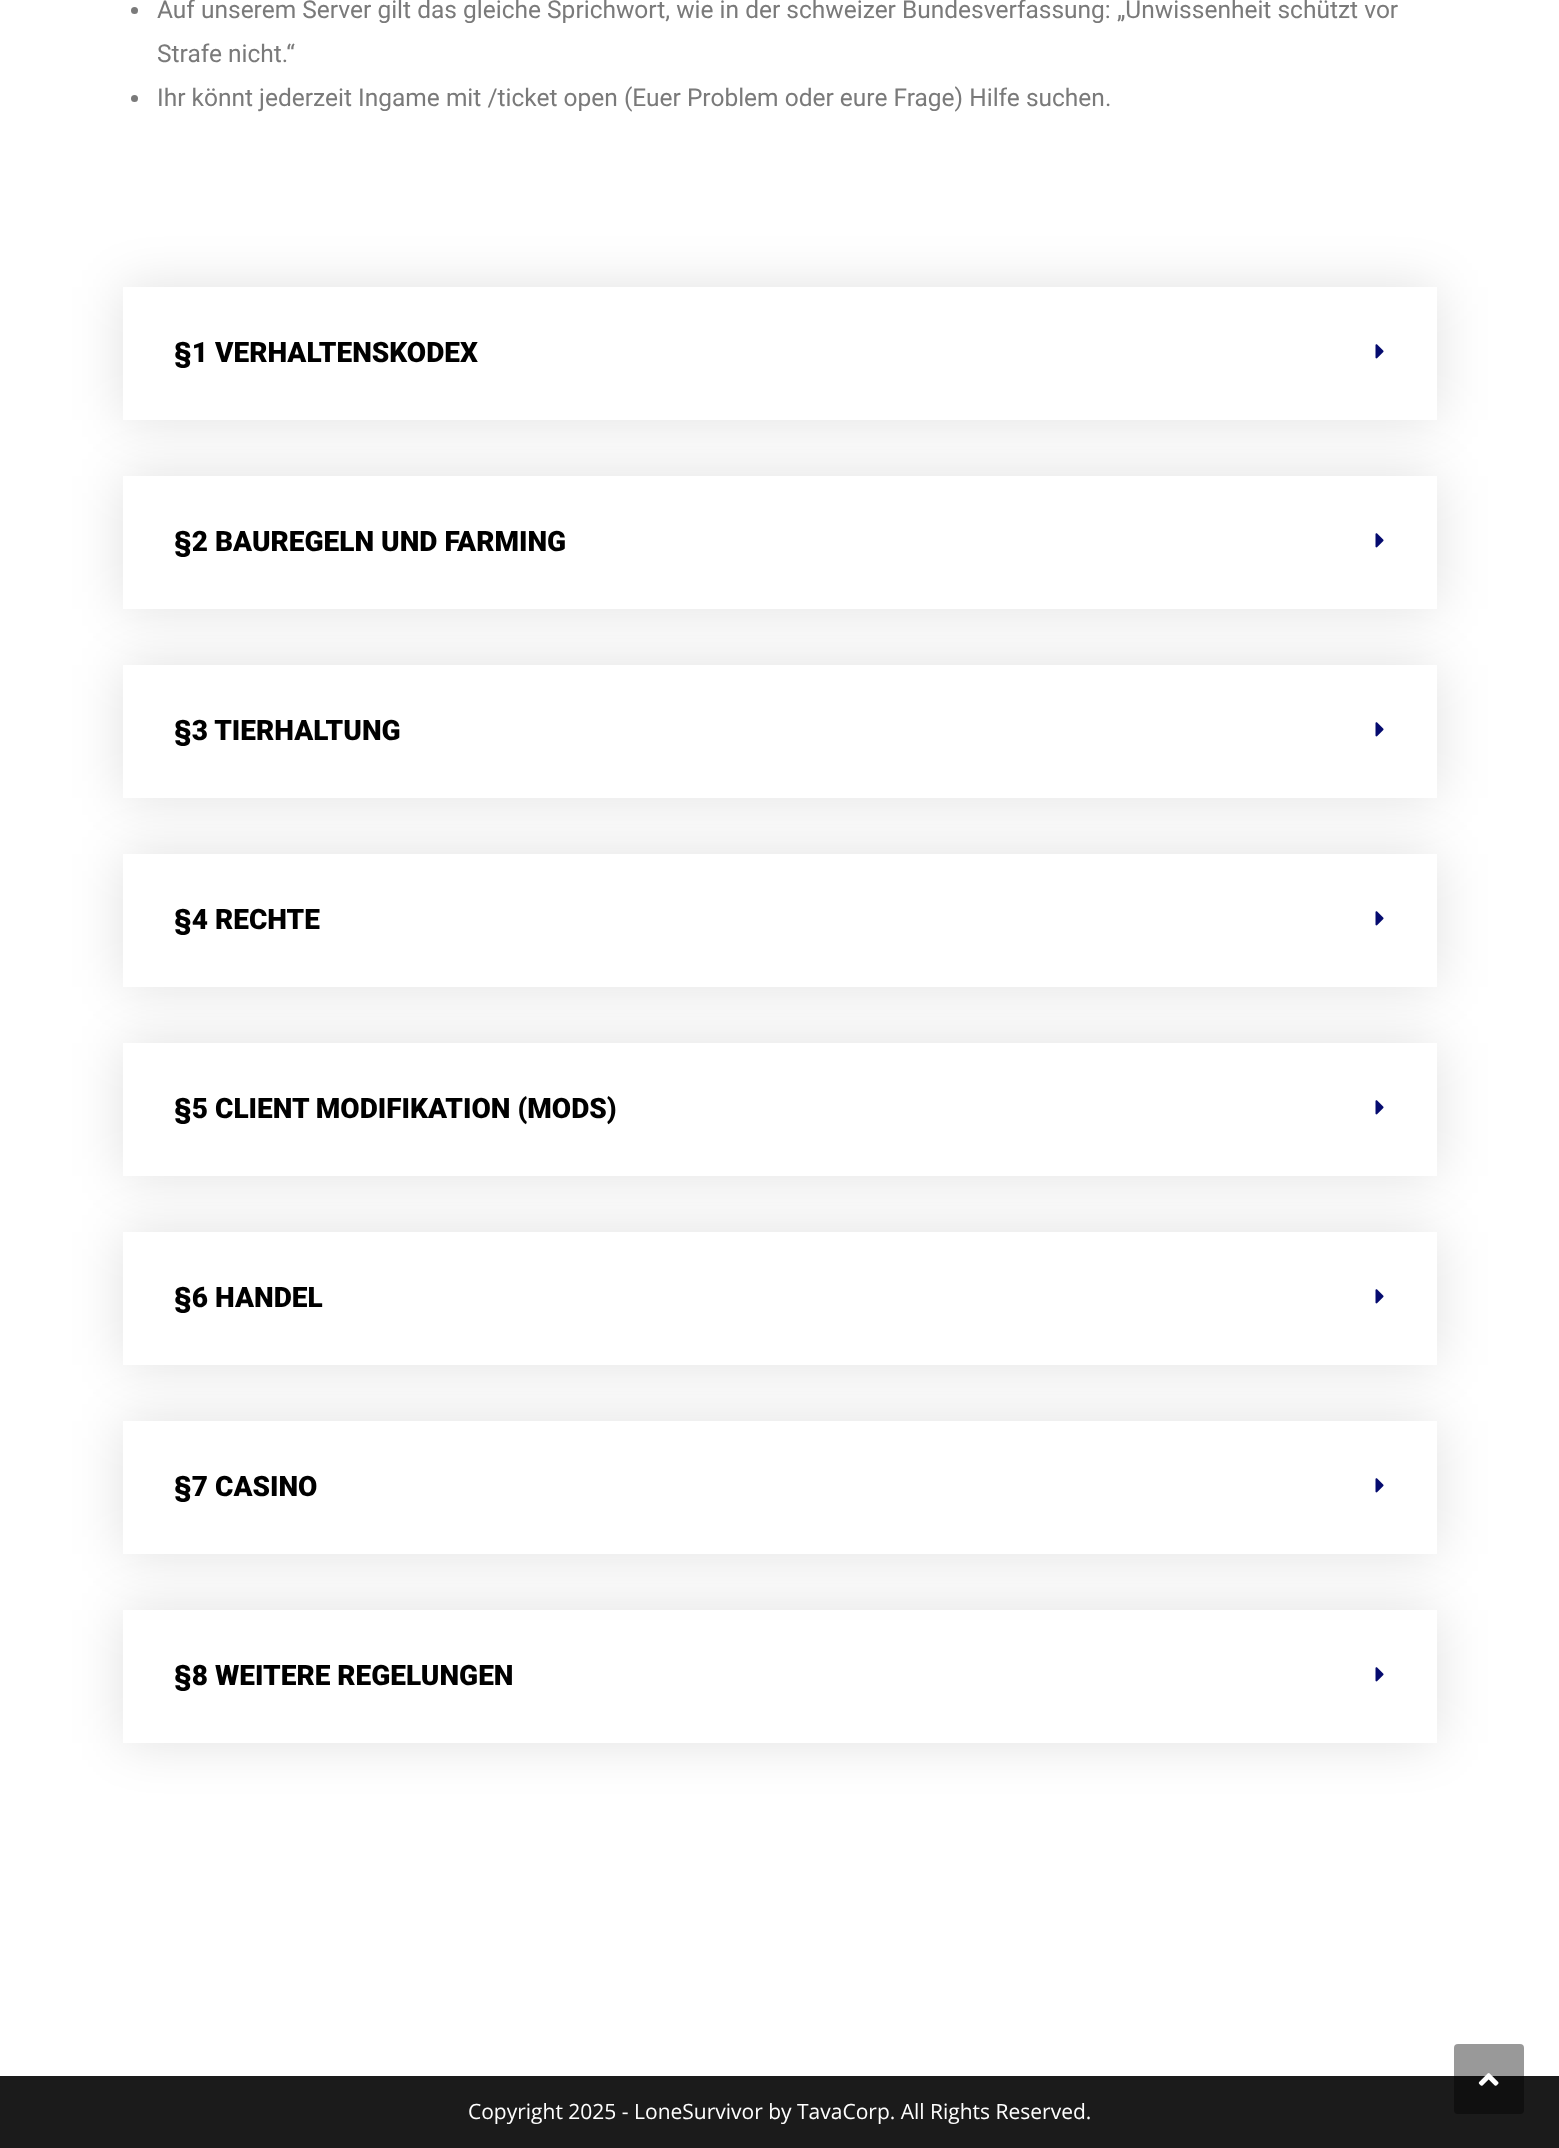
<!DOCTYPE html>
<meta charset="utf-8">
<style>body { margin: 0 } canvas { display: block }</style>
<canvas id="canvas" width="1559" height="2148"></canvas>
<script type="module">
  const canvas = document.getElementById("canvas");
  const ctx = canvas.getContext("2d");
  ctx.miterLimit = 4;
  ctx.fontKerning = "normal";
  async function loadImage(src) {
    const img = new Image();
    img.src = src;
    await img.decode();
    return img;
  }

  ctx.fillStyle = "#ffffff";
  ctx.fillRect(0, 0, 1559, 2148);
  ctx.fillStyle = "#7a7a7a";
  ctx.beginPath();
  ctx.arc(134.5, 10.5, 3.5, 0, Math.PI * 2);
  ctx.fill();
  ctx.font = "24.5px Roboto";
  ctx.fillText("Auf unserem Server gilt das gleiche Sprichwort, wie in der schweizer Bundesverfassung: „Unwissenheit schützt vor", 157, 18);
  ctx.fillText("Strafe nicht.“", 157, 62);
  ctx.beginPath();
  ctx.arc(134.5, 98.5, 3.5, 0, Math.PI * 2);
  ctx.fill();
  ctx.fillText("Ihr könnt jederzeit Ingame mit /ticket open (Euer Problem oder eure Frage) Hilfe suchen.", 157, 106);
  ctx.save();
  ctx.beginPath();
  ctx.moveTo(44, 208);
  ctx.lineTo(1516, 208);
  ctx.lineTo(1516, 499);
  ctx.lineTo(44, 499);
  ctx.closePath();
  ctx.moveTo(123, 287);
  ctx.lineTo(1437, 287);
  ctx.lineTo(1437, 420);
  ctx.lineTo(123, 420);
  ctx.closePath();
  ctx.clip("evenodd");
  ctx.fillStyle = "rgba(0, 0, 0, 0.12)";
  ctx.filter = "blur(26px)";
  ctx.beginPath();
  ctx.rect(123, 287, 1314, 133);
  ctx.fill();
  ctx.filter = "none";
  ctx.restore();
  ctx.font = "900 28px Roboto";
  ctx.fillStyle = "#000000";
  ctx.fillText("§1 VERHALTENSKODEX", 174, 362);
  ctx.drawImage(await loadImage("img1.png"), 1375, 344, 9, 15);
  ctx.save();
  ctx.beginPath();
  ctx.moveTo(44, 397);
  ctx.lineTo(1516, 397);
  ctx.lineTo(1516, 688);
  ctx.lineTo(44, 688);
  ctx.closePath();
  ctx.moveTo(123, 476);
  ctx.lineTo(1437, 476);
  ctx.lineTo(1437, 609);
  ctx.lineTo(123, 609);
  ctx.closePath();
  ctx.clip("evenodd");
  ctx.fillStyle = "rgba(0, 0, 0, 0.12)";
  ctx.filter = "blur(26px)";
  ctx.beginPath();
  ctx.rect(123, 476, 1314, 133);
  ctx.fill();
  ctx.filter = "none";
  ctx.restore();
  ctx.fillText("§2 BAUREGELN UND FARMING", 174, 551);
  ctx.drawImage(await loadImage("img1.png"), 1375, 533, 9, 15);
  ctx.save();
  ctx.beginPath();
  ctx.moveTo(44, 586);
  ctx.lineTo(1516, 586);
  ctx.lineTo(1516, 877);
  ctx.lineTo(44, 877);
  ctx.closePath();
  ctx.moveTo(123, 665);
  ctx.lineTo(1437, 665);
  ctx.lineTo(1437, 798);
  ctx.lineTo(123, 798);
  ctx.closePath();
  ctx.clip("evenodd");
  ctx.fillStyle = "rgba(0, 0, 0, 0.12)";
  ctx.filter = "blur(26px)";
  ctx.beginPath();
  ctx.rect(123, 665, 1314, 133);
  ctx.fill();
  ctx.filter = "none";
  ctx.restore();
  ctx.fillText("§3 TIERHALTUNG", 174, 740);
  ctx.drawImage(await loadImage("img1.png"), 1375, 722, 9, 15);
  ctx.save();
  ctx.beginPath();
  ctx.moveTo(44, 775);
  ctx.lineTo(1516, 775);
  ctx.lineTo(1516, 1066);
  ctx.lineTo(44, 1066);
  ctx.closePath();
  ctx.moveTo(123, 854);
  ctx.lineTo(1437, 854);
  ctx.lineTo(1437, 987);
  ctx.lineTo(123, 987);
  ctx.closePath();
  ctx.clip("evenodd");
  ctx.fillStyle = "rgba(0, 0, 0, 0.12)";
  ctx.filter = "blur(26px)";
  ctx.beginPath();
  ctx.rect(123, 854, 1314, 133);
  ctx.fill();
  ctx.filter = "none";
  ctx.restore();
  ctx.fillText("§4 RECHTE", 174, 929);
  ctx.drawImage(await loadImage("img1.png"), 1375, 911, 9, 15);
  ctx.save();
  ctx.beginPath();
  ctx.moveTo(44, 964);
  ctx.lineTo(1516, 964);
  ctx.lineTo(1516, 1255);
  ctx.lineTo(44, 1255);
  ctx.closePath();
  ctx.moveTo(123, 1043);
  ctx.lineTo(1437, 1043);
  ctx.lineTo(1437, 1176);
  ctx.lineTo(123, 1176);
  ctx.closePath();
  ctx.clip("evenodd");
  ctx.fillStyle = "rgba(0, 0, 0, 0.12)";
  ctx.filter = "blur(26px)";
  ctx.beginPath();
  ctx.rect(123, 1043, 1314, 133);
  ctx.fill();
  ctx.filter = "none";
  ctx.restore();
  ctx.fillText("§5 CLIENT MODIFIKATION (MODS)", 174, 1118);
  ctx.drawImage(await loadImage("img1.png"), 1375, 1100, 9, 15);
  ctx.save();
  ctx.beginPath();
  ctx.moveTo(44, 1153);
  ctx.lineTo(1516, 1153);
  ctx.lineTo(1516, 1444);
  ctx.lineTo(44, 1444);
  ctx.closePath();
  ctx.moveTo(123, 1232);
  ctx.lineTo(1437, 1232);
  ctx.lineTo(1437, 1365);
  ctx.lineTo(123, 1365);
  ctx.closePath();
  ctx.clip("evenodd");
  ctx.fillStyle = "rgba(0, 0, 0, 0.12)";
  ctx.filter = "blur(26px)";
  ctx.beginPath();
  ctx.rect(123, 1232, 1314, 133);
  ctx.fill();
  ctx.filter = "none";
  ctx.restore();
  ctx.fillText("§6 HANDEL", 174, 1307);
  ctx.drawImage(await loadImage("img1.png"), 1375, 1289, 9, 15);
  ctx.save();
  ctx.beginPath();
  ctx.moveTo(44, 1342);
  ctx.lineTo(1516, 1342);
  ctx.lineTo(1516, 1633);
  ctx.lineTo(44, 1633);
  ctx.closePath();
  ctx.moveTo(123, 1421);
  ctx.lineTo(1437, 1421);
  ctx.lineTo(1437, 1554);
  ctx.lineTo(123, 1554);
  ctx.closePath();
  ctx.clip("evenodd");
  ctx.fillStyle = "rgba(0, 0, 0, 0.12)";
  ctx.filter = "blur(26px)";
  ctx.beginPath();
  ctx.rect(123, 1421, 1314, 133);
  ctx.fill();
  ctx.filter = "none";
  ctx.restore();
  ctx.fillText("§7 CASINO", 174, 1496);
  ctx.drawImage(await loadImage("img1.png"), 1375, 1478, 9, 15);
  ctx.save();
  ctx.beginPath();
  ctx.moveTo(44, 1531);
  ctx.lineTo(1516, 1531);
  ctx.lineTo(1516, 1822);
  ctx.lineTo(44, 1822);
  ctx.closePath();
  ctx.moveTo(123, 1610);
  ctx.lineTo(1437, 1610);
  ctx.lineTo(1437, 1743);
  ctx.lineTo(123, 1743);
  ctx.closePath();
  ctx.clip("evenodd");
  ctx.fillStyle = "rgba(0, 0, 0, 0.12)";
  ctx.filter = "blur(26px)";
  ctx.beginPath();
  ctx.rect(123, 1610, 1314, 133);
  ctx.fill();
  ctx.filter = "none";
  ctx.restore();
  ctx.fillText("§8 WEITERE REGELUNGEN", 174, 1685);
  ctx.drawImage(await loadImage("img1.png"), 1375, 1667, 9, 15);
  ctx.fillStyle = "#1b1b1b";
  ctx.fillRect(0, 2076, 1559, 72);
  ctx.font = "21px Open Sans";
  ctx.fillStyle = "#ffffff";
  ctx.fillText("Copyright 2025 - LoneSurvivor by TavaCorp. All Rights Reserved.", 468, 2119);
  ctx.fillStyle = "rgba(0, 0, 0, 0.4)";
  ctx.beginPath();
  ctx.roundRect(1454, 2044, 70, 70, 4);
  ctx.fill();
  ctx.drawImage(await loadImage("img2.png"), 1478, 2073, 21, 13);
</script>
